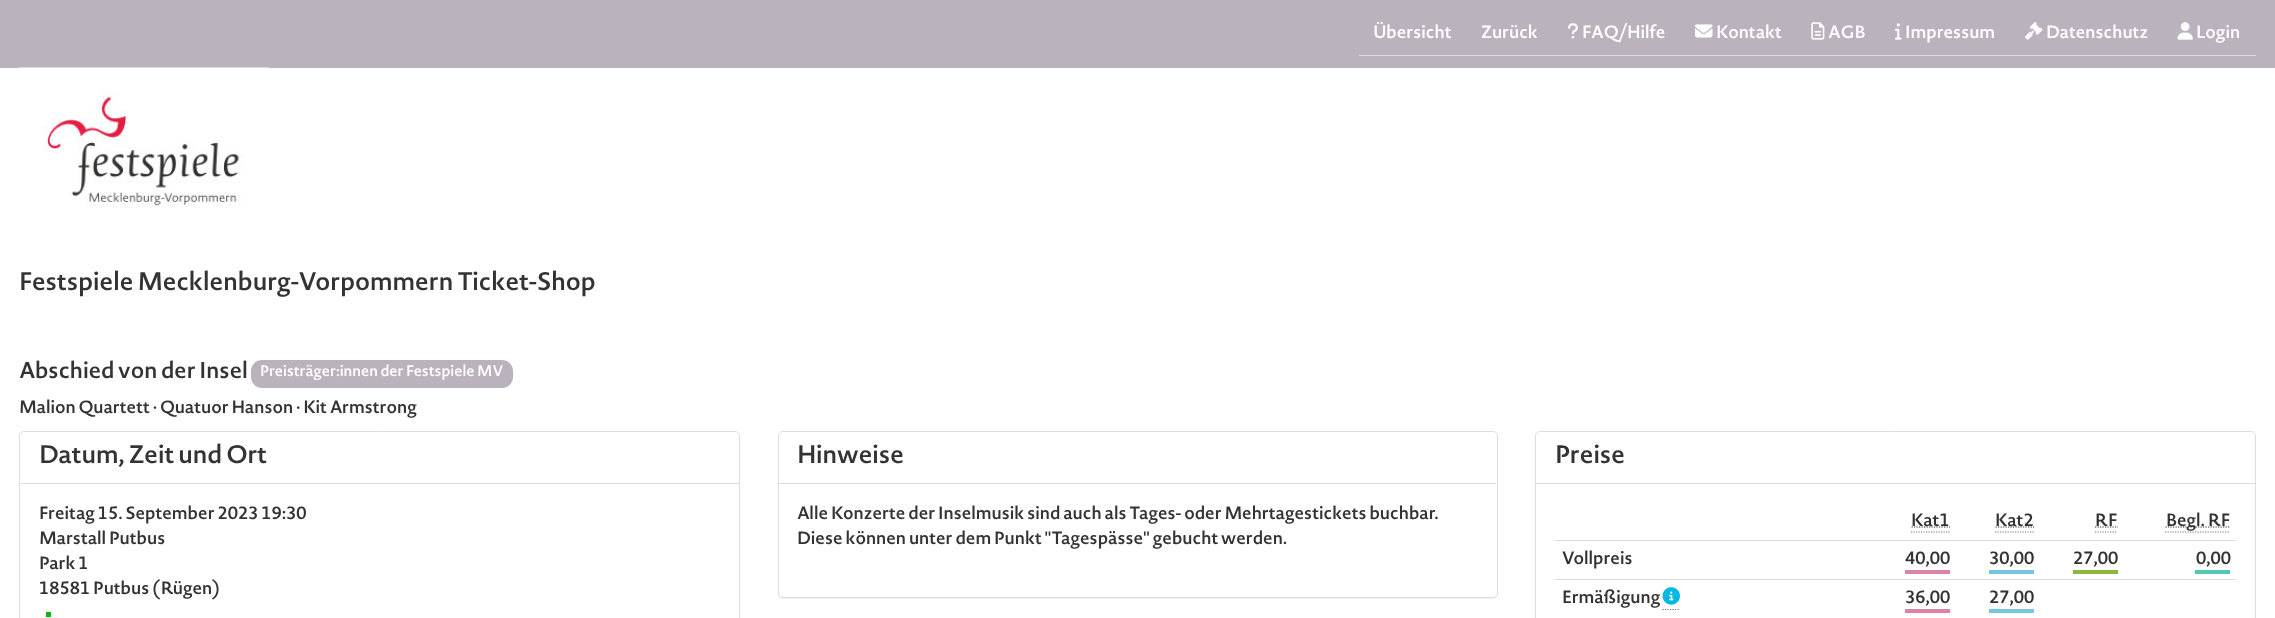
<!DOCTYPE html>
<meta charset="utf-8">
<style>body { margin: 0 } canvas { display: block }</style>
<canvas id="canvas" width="2275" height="618"></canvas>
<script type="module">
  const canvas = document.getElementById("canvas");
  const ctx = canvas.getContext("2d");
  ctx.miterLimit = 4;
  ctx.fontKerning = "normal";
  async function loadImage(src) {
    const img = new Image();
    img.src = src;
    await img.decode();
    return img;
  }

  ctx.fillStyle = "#ffffff";
  ctx.fillRect(0, 0, 2275, 618);
  ctx.fillStyle = "#bab2bd";
  ctx.fillRect(0, 0, 2275, 68);
  ctx.fillStyle = "#dddddd";
  ctx.fillRect(1359, 55, 897, 1);
  ctx.font = "600 17.5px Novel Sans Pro";
  ctx.fillStyle = "#ffffff";
  ctx.fillText("Übersicht", 1373, 38);
  ctx.fillText("Zurück", 1481, 38);
  ctx.drawImage(await loadImage("img1.png"), 1568, 23, 10, 16);
  ctx.fillText("FAQ/Hilfe", 1582, 38);
  ctx.drawImage(await loadImage("img2.png"), 1695, 24, 18, 14);
  ctx.fillText("Kontakt", 1716, 38);
  ctx.drawImage(await loadImage("img3.png"), 1811, 22, 14, 18);
  ctx.fillText("AGB", 1828, 38);
  ctx.drawImage(await loadImage("img4.png"), 1895, 23, 7, 17);
  ctx.fillText("Impressum", 1905, 38);
  ctx.drawImage(await loadImage("img5.png"), 2025, 22, 18, 18);
  ctx.fillText("Datenschutz", 2046, 38);
  ctx.drawImage(await loadImage("img6.png"), 2177, 22, 16, 18);
  ctx.fillText("Login", 2196, 38);
  ctx.drawImage(await loadImage("img7.png"), 18, 67, 251, 141);
  ctx.font = "600 25px Novel Sans Pro";
  ctx.fillStyle = "#333333";
  ctx.fillText("Festspiele Mecklenburg-Vorpommern Ticket-Shop", 19, 290);
  ctx.font = "600 22.5px Novel Sans Pro";
  ctx.fillText("Abschied von der Insel", 19, 378);
  ctx.fillStyle = "#bab2bd";
  ctx.beginPath();
  ctx.roundRect(251, 360, 262, 28, 11);
  ctx.fill();
  ctx.font = "600 15px Novel Sans Pro";
  ctx.fillStyle = "#ffffff";
  ctx.fillText("Preisträger:innen der Festspiele MV", 260, 376);
  ctx.font = "600 17.5px Novel Sans Pro";
  ctx.fillStyle = "#333333";
  ctx.fillText("Malion Quartett · Quatuor Hanson · Kit Armstrong", 19, 413);
  ctx.beginPath();
  ctx.roundRect(19.5, 431.5, 720, 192, 4.5);
  ctx.strokeStyle = "#dddddd";
  ctx.stroke();
  ctx.fillStyle = "#dddddd";
  ctx.fillRect(20, 483, 719, 1);
  ctx.font = "600 25px Novel Sans Pro";
  ctx.fillStyle = "#333333";
  ctx.fillText("Datum, Zeit und Ort", 39, 463);
  ctx.font = "600 17.5px Novel Sans Pro";
  ctx.fillText("Freitag 15. September 2023 19:30", 39, 519);
  ctx.fillText("Marstall Putbus", 39, 544);
  ctx.fillText("Park 1", 39, 569);
  ctx.fillText("18581 Putbus (Rügen)", 39, 594);
  ctx.fillStyle = "#12b512";
  ctx.fillRect(46, 612, 5, 5);
  ctx.fillStyle = "rgba(0, 0, 0, 0.05)";
  ctx.filter = "blur(0.5px)";
  ctx.beginPath();
  ctx.roundRect(778, 433, 720, 166, 5);
  ctx.fill();
  ctx.filter = "none";
  ctx.fillStyle = "#ffffff";
  ctx.beginPath();
  ctx.roundRect(778.5, 431.5, 719, 166, 4.5);
  ctx.fill();
  ctx.stroke();
  ctx.fillStyle = "#dddddd";
  ctx.fillRect(779, 483, 717, 1);
  ctx.font = "600 25px Novel Sans Pro";
  ctx.fillStyle = "#333333";
  ctx.fillText("Hinweise", 797, 463);
  ctx.font = "600 17.5px Novel Sans Pro";
  ctx.fillText("Alle Konzerte der Inselmusik sind auch als Tages- oder Mehrtagestickets buchbar.", 797, 519);
  ctx.fillText("Diese können unter dem Punkt \"Tagespässe\" gebucht werden.", 797, 544);
  ctx.beginPath();
  ctx.roundRect(1535.5, 431.5, 720, 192, 4.5);
  ctx.stroke();
  ctx.fillStyle = "#dddddd";
  ctx.fillRect(1536, 483, 719, 1);
  ctx.font = "600 25px Novel Sans Pro";
  ctx.fillStyle = "#333333";
  ctx.fillText("Preise", 1555, 463);
  ctx.beginPath();
  ctx.moveTo(1911.5, 527);
  ctx.lineTo(1950, 527);
  ctx.strokeStyle = "#333333";
  ctx.lineWidth = 1.2;
  ctx.setLineDash([1.25, 1.25]);
  ctx.stroke();
  ctx.font = "600 17.5px Novel Sans Pro";
  ctx.fillText("Kat1", 1911, 526);
  ctx.beginPath();
  ctx.moveTo(1911, 532);
  ctx.lineTo(1950, 532);
  ctx.strokeStyle = "#777777";
  ctx.stroke();
  ctx.beginPath();
  ctx.moveTo(1995.5, 527);
  ctx.lineTo(2034, 527);
  ctx.strokeStyle = "#333333";
  ctx.stroke();
  ctx.fillText("Kat2", 1995, 526);
  ctx.beginPath();
  ctx.moveTo(1995, 532);
  ctx.lineTo(2034, 532);
  ctx.strokeStyle = "#777777";
  ctx.stroke();
  ctx.beginPath();
  ctx.moveTo(2095, 527);
  ctx.lineTo(2118, 527);
  ctx.strokeStyle = "#333333";
  ctx.stroke();
  ctx.fillText("RF", 2095, 526);
  ctx.beginPath();
  ctx.moveTo(2095, 532);
  ctx.lineTo(2117.5, 532);
  ctx.strokeStyle = "#777777";
  ctx.stroke();
  ctx.beginPath();
  ctx.moveTo(2165.5, 527);
  ctx.lineTo(2230.5, 527);
  ctx.strokeStyle = "#333333";
  ctx.stroke();
  ctx.fillText("Begl. RF", 2166, 526);
  ctx.beginPath();
  ctx.moveTo(2165, 532);
  ctx.lineTo(2230, 532);
  ctx.strokeStyle = "#777777";
  ctx.stroke();
  ctx.fillText("Vollpreis", 1562, 564);
  ctx.fillText("40,00", 1905, 564);
  ctx.fillStyle = "#de82a8";
  ctx.fillRect(1905, 570, 45, 4);
  ctx.fillStyle = "#333333";
  ctx.fillText("30,00", 1989, 564);
  ctx.fillStyle = "#74c7e2";
  ctx.fillRect(1989, 570, 45, 4);
  ctx.fillStyle = "#333333";
  ctx.fillText("27,00", 2073, 564);
  ctx.fillStyle = "#8cb63d";
  ctx.fillRect(2073, 570, 45, 4);
  ctx.fillStyle = "#dddddd";
  ctx.fillRect(1555, 540, 681, 1);
  ctx.fillStyle = "#333333";
  ctx.fillText("0,00", 2196, 564);
  ctx.fillStyle = "#53c9b5";
  ctx.fillRect(2195, 570, 35, 4);
  ctx.fillStyle = "#dddddd";
  ctx.fillRect(1555, 579, 681, 1);
  ctx.fillStyle = "#333333";
  ctx.fillText("Ermäßigung", 1562, 603);
  ctx.beginPath();
  ctx.moveTo(1662.5, 609.5);
  ctx.lineTo(1680, 609.5);
  ctx.stroke();
  ctx.drawImage(await loadImage("img8.png"), 1662, 587, 18, 18);
  ctx.fillText("36,00", 1905, 603);
  ctx.fillStyle = "#de82a8";
  ctx.fillRect(1905, 609, 45, 4);
  ctx.fillStyle = "#333333";
  ctx.fillText("27,00", 1989, 603);
  ctx.fillStyle = "#74c7e2";
  ctx.fillRect(1989, 609, 45, 4);
</script>
